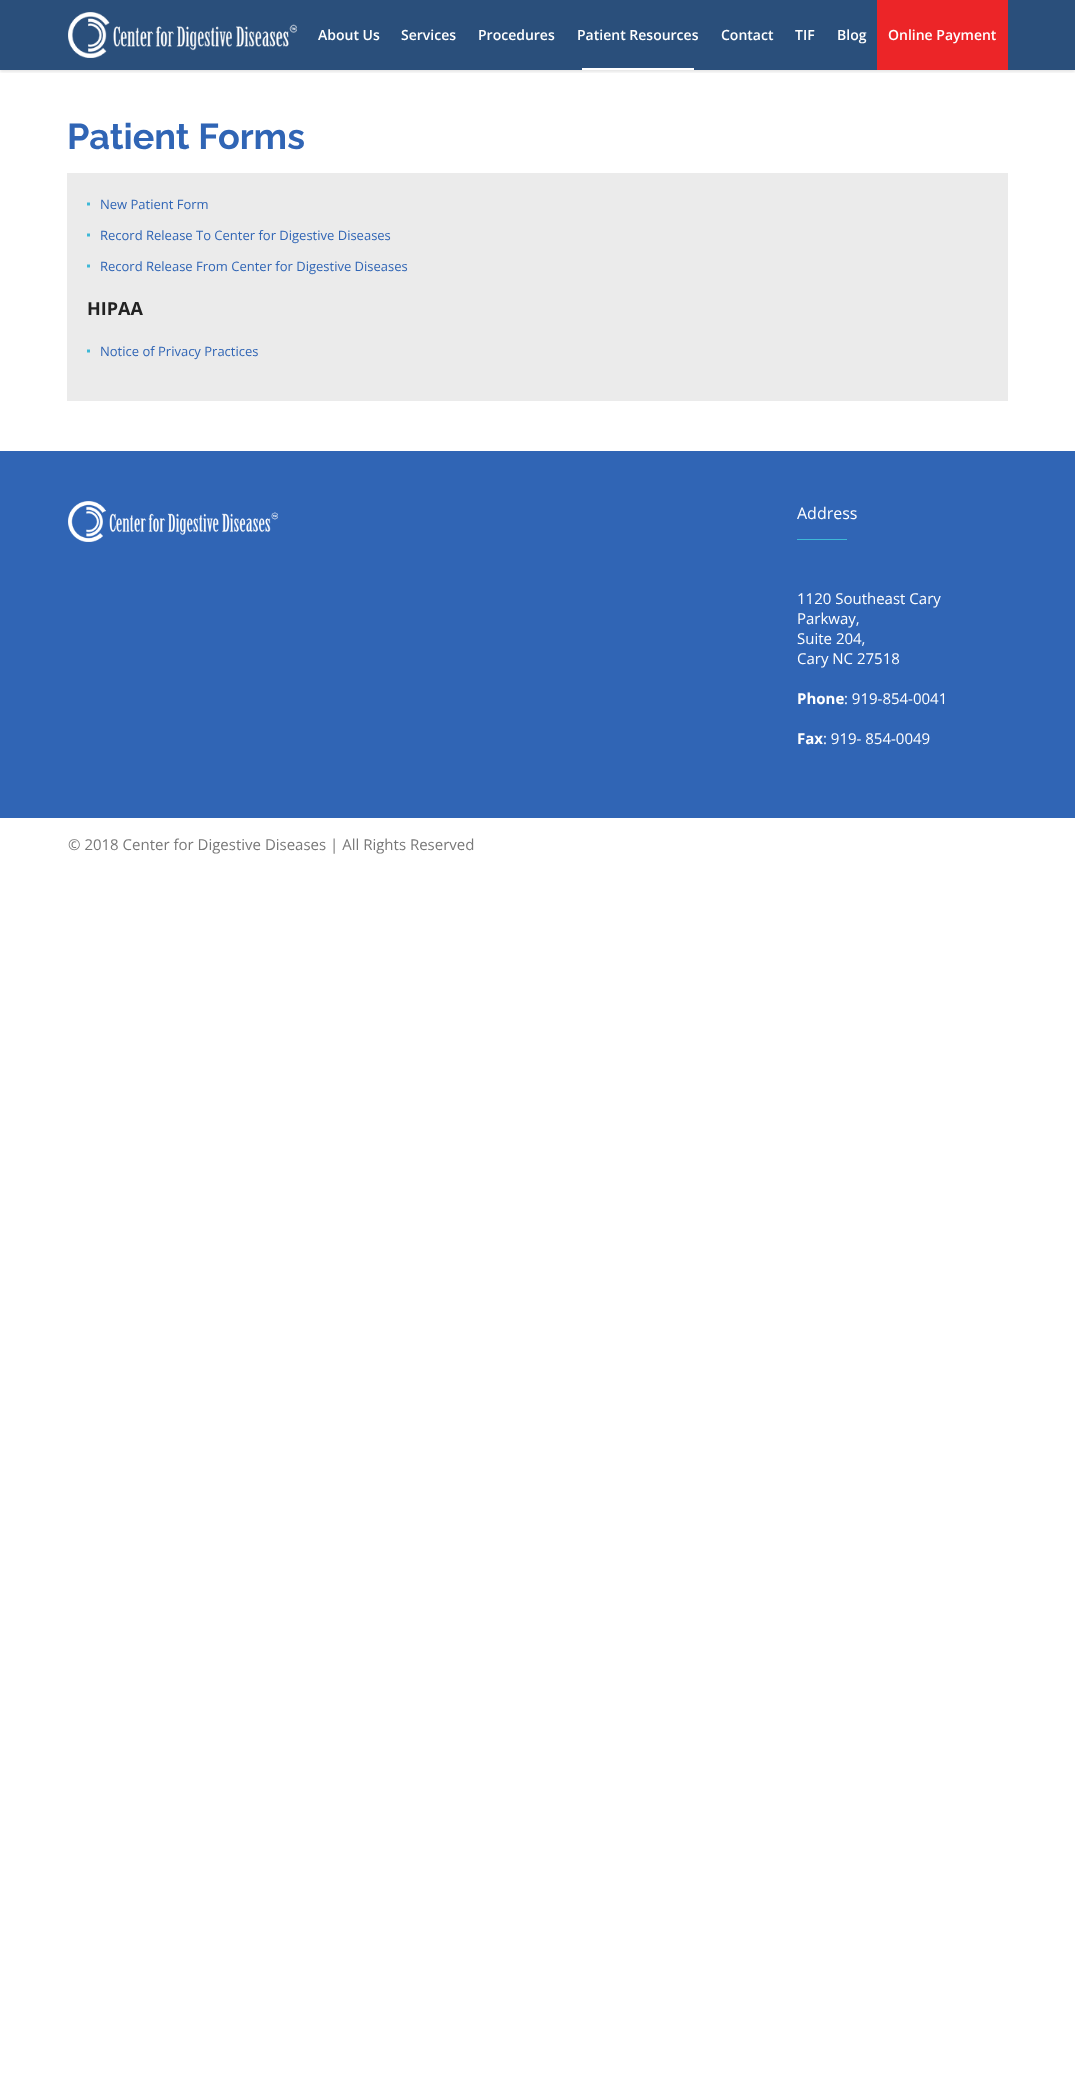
<!DOCTYPE html>
<meta charset="utf-8">
<style>body { margin: 0 } canvas { display: block }</style>
<canvas id="canvas" width="1075" height="2077"></canvas>
<script type="module">
  const canvas = document.getElementById("canvas");
  const ctx = canvas.getContext("2d");
  ctx.miterLimit = 4;
  ctx.fontKerning = "normal";
  async function loadImage(src) {
    const img = new Image();
    img.src = src;
    await img.decode();
    return img;
  }

  ctx.fillStyle = "#ffffff";
  ctx.fillRect(0, 0, 1075, 2077);
  ctx.fillStyle = "#2a4f7b";
  ctx.fillRect(0, 0, 1075, 70);
  ctx.save();
  ctx.beginPath();
  ctx.rect(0, 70, 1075, 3);
  ctx.clip();
  ctx.fillStyle = "rgba(0, 0, 0, 0.1)";
  ctx.filter = "blur(1.5px)";
  ctx.beginPath();
  ctx.rect(0, 2, 1075, 70);
  ctx.fill();
  ctx.filter = "none";
  ctx.restore();
  ctx.drawImage(await loadImage("img1.png"), 68, 12, 229, 46);
  ctx.font = "600 14px Open Sans";
  ctx.fillStyle = "#ffffff";
  ctx.fillText("About Us", 318, 40);
  ctx.fillText("Services", 401, 40);
  ctx.fillText("Procedures", 478, 40);
  ctx.fillText("Patient Resources", 577, 40);
  ctx.fillText("Contact", 721, 40);
  ctx.fillText("TIF", 795, 40);
  ctx.fillText("Blog", 837, 40);
  ctx.fillStyle = "#ec2528";
  ctx.fillRect(877, 0, 131, 70);
  ctx.fillStyle = "#ffffff";
  ctx.fillText("Online Payment", 888, 40);
  ctx.fillRect(582, 68, 112, 2);
  ctx.font = "bold 36px Raleway";
  ctx.fillStyle = "#3065b5";
  ctx.fillText("Patient Forms", 67, 149);
  ctx.fillStyle = "#ebebeb";
  ctx.fillRect(67, 173, 941, 228);
  ctx.fillStyle = "#3eb8d7";
  ctx.beginPath();
  ctx.moveTo(90, 202.5);
  ctx.lineTo(90, 205.5);
  ctx.lineTo(87, 205.5);
  ctx.lineTo(87, 202.5);
  ctx.closePath();
  ctx.fill();
  ctx.font = "13px Open Sans";
  ctx.fillStyle = "#3065b5";
  ctx.fillText("New Patient Form", 100, 209);
  ctx.fillStyle = "#3eb8d7";
  ctx.beginPath();
  ctx.moveTo(90, 233.5);
  ctx.lineTo(90, 236.5);
  ctx.lineTo(87, 236.5);
  ctx.lineTo(87, 233.5);
  ctx.closePath();
  ctx.fill();
  ctx.fillStyle = "#3065b5";
  ctx.fillText("Record Release To Center for Digestive Diseases", 100, 240);
  ctx.fillStyle = "#3eb8d7";
  ctx.beginPath();
  ctx.moveTo(90, 264.5);
  ctx.lineTo(90, 267.5);
  ctx.lineTo(87, 267.5);
  ctx.lineTo(87, 264.5);
  ctx.closePath();
  ctx.fill();
  ctx.fillStyle = "#3065b5";
  ctx.fillText("Record Release From Center for Digestive Diseases", 100, 271);
  ctx.font = "bold 18px Open Sans";
  ctx.fillStyle = "#222222";
  ctx.fillText("HIPAA", 87, 315);
  ctx.fillStyle = "#3eb8d7";
  ctx.beginPath();
  ctx.moveTo(90, 349.5);
  ctx.lineTo(90, 352.5);
  ctx.lineTo(87, 352.5);
  ctx.lineTo(87, 349.5);
  ctx.closePath();
  ctx.fill();
  ctx.font = "13px Open Sans";
  ctx.fillStyle = "#3065b5";
  ctx.fillText("Notice of Privacy Practices", 100, 356);
  ctx.fillRect(0, 451, 1075, 367);
  ctx.drawImage(await loadImage("img2.png"), 68, 501, 210, 41);
  ctx.font = "16px Open Sans";
  ctx.fillStyle = "#ffffff";
  ctx.fillText("Address", 797, 519);
  ctx.fillStyle = "#3eb8d7";
  ctx.fillRect(797, 539, 50, 1);
  ctx.font = "15px Open Sans";
  ctx.fillStyle = "#ffffff";
  ctx.fillText("1120 Southeast Cary", 797, 604);
  ctx.fillText("Parkway,", 797, 624);
  ctx.fillText("Suite 204,", 797, 644);
  ctx.fillText("Cary NC 27518", 797, 664);
  ctx.font = "bold 15px Open Sans";
  ctx.fillText("Phone", 797, 704);
  ctx.font = "15px Open Sans";
  ctx.fillText(": 919-854-0041", 844, 704);
  ctx.font = "bold 15px Open Sans";
  ctx.fillText("Fax", 797, 744);
  ctx.font = "15px Open Sans";
  ctx.fillText(": 919- 854-0049", 823, 744);
  ctx.fillStyle = "#787878";
  ctx.fillText("© 2018 Center for Digestive Diseases | All Rights Reserved", 68, 850);
</script>
